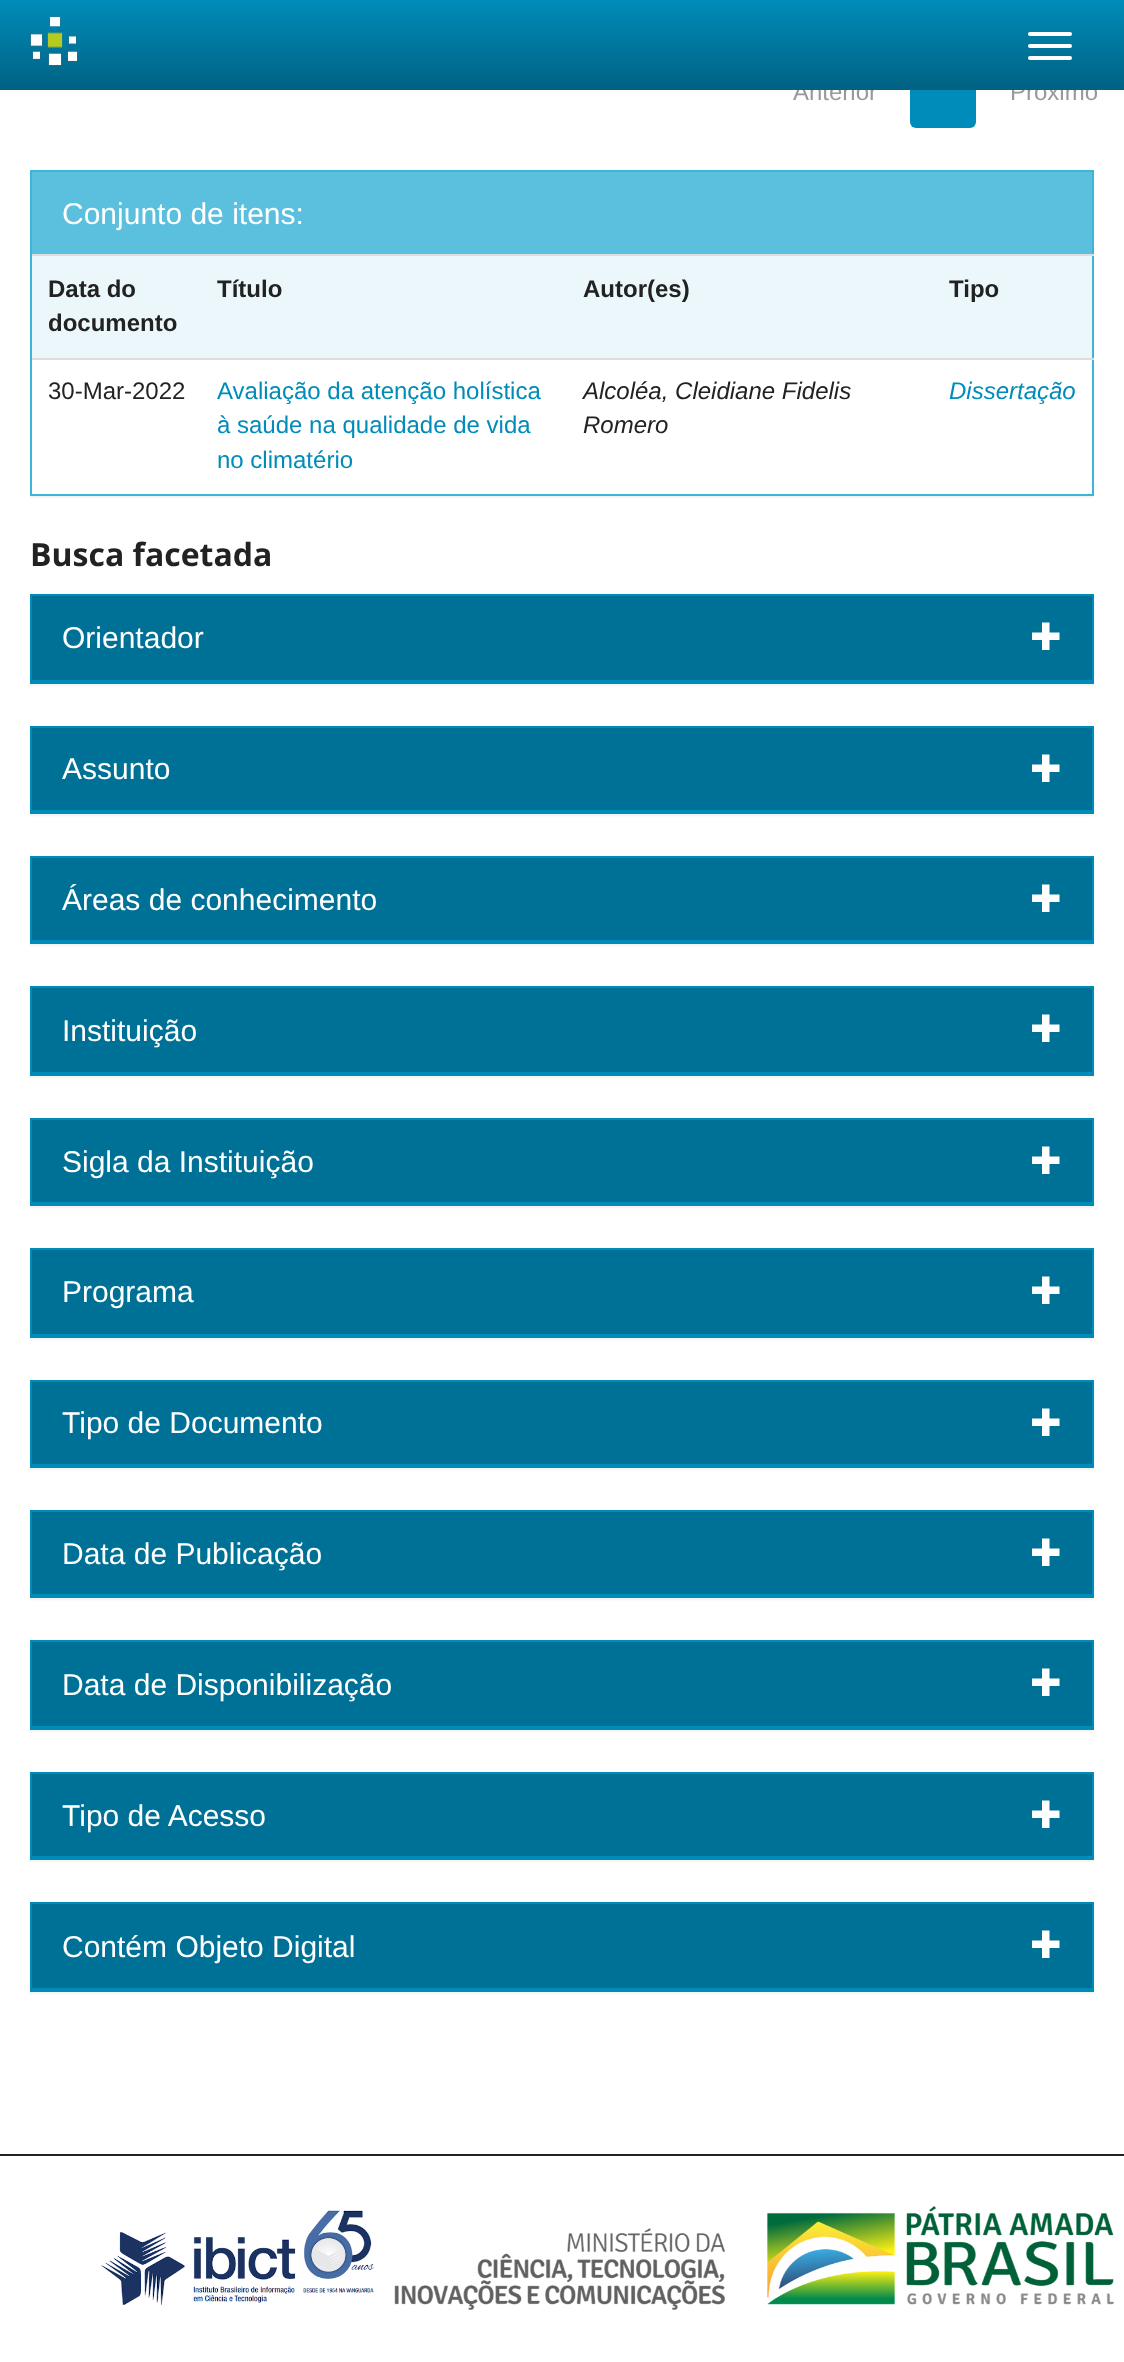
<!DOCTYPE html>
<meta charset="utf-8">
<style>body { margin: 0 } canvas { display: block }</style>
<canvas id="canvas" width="1124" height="2362"></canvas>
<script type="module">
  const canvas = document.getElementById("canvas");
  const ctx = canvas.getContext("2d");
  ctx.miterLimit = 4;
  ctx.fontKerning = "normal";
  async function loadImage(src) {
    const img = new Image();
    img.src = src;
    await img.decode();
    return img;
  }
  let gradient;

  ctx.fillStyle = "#ffffff";
  ctx.fillRect(0, 0, 1124, 2362);
  ctx.font = "24px Liberation Sans";
  ctx.fillStyle = "#999999";
  ctx.fillText("Anterior", 793, 100);
  ctx.fillStyle = "#008cba";
  ctx.beginPath();
  ctx.roundRect(910, 58, 66, 70, 6);
  ctx.fill();
  ctx.fillStyle = "#999999";
  ctx.fillText("Próximo", 1010, 100);
  gradient = ctx.createLinearGradient(562, 0, 562, 90);
  gradient.addColorStop(0, "#008cba");
  gradient.addColorStop(1, "#006282");
  ctx.fillStyle = gradient;
  ctx.fillRect(0, 0, 1124, 90);
  ctx.drawImage(await loadImage("img1.png"), 30, 16, 48, 50);
  ctx.fillStyle = "#ffffff";
  ctx.beginPath();
  ctx.roundRect(1028, 32, 44, 4, 2);
  ctx.fill();
  ctx.beginPath();
  ctx.roundRect(1028, 44, 44, 4, 2);
  ctx.fill();
  ctx.beginPath();
  ctx.roundRect(1028, 56, 44, 4, 2);
  ctx.fill();
  ctx.save();
  ctx.beginPath();
  ctx.rect(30, 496, 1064, 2);
  ctx.clip();
  ctx.fillStyle = "rgba(0, 0, 0, 0.05)";
  ctx.filter = "blur(1px)";
  ctx.beginPath();
  ctx.rect(30, 172, 1064, 326);
  ctx.fill();
  ctx.filter = "none";
  ctx.restore();
  ctx.strokeStyle = "#3db5d8";
  ctx.lineWidth = 2;
  ctx.strokeRect(31, 171, 1062, 324);
  ctx.fillStyle = "#5bc0de";
  ctx.fillRect(32, 172, 1060, 82);
  ctx.font = "30px Liberation Sans";
  ctx.fillStyle = "#ffffff";
  ctx.fillText("Conjunto de itens:", 62, 224);
  ctx.fillStyle = "#ebf7fb";
  ctx.fillRect(32, 256, 1060, 102);
  ctx.font = "bold 24px Liberation Sans";
  ctx.fillStyle = "#222222";
  ctx.fillText("Data do", 48, 297);
  ctx.fillText("documento", 48, 331);
  ctx.fillText("Título", 217, 297);
  ctx.fillText("Autor(es)", 583, 297);
  ctx.fillStyle = "#dddddd";
  ctx.fillRect(32, 254, 1062, 2);
  ctx.fillStyle = "#222222";
  ctx.fillText("Tipo", 949, 297);
  ctx.font = "24px Liberation Sans";
  ctx.fillText("30-Mar-2022", 48, 399);
  ctx.fillStyle = "#008cba";
  ctx.fillText("Avaliação da atenção holística", 217, 399);
  ctx.fillText("à saúde na qualidade de vida", 217, 433);
  ctx.fillText("no climatério", 217, 468);
  ctx.font = "italic 24px Liberation Sans";
  ctx.fillStyle = "#222222";
  ctx.fillText("Alcoléa, Cleidiane Fidelis", 583, 399);
  ctx.fillText("Romero", 583, 433);
  ctx.fillStyle = "#dddddd";
  ctx.fillRect(32, 358, 1062, 2);
  ctx.fillStyle = "#008cba";
  ctx.fillText("Dissertação", 949, 399);
  ctx.font = "bold 32px Open Sans";
  ctx.fillStyle = "#222222";
  ctx.fillText("Busca facetada", 30, 566);
  ctx.fillStyle = "rgba(0, 0, 0, 0.05)";
  ctx.filter = "blur(1px)";
  ctx.beginPath();
  ctx.rect(30, 596, 1064, 90);
  ctx.fill();
  ctx.filter = "none";
  ctx.strokeStyle = "#008cba";
  ctx.strokeRect(31, 595, 1062, 88);
  ctx.fillStyle = "#007196";
  ctx.fillRect(32, 596, 1060, 84);
  ctx.fillStyle = "#008cba";
  ctx.fillRect(32, 680, 1060, 2);
  ctx.font = "30px Liberation Sans";
  ctx.fillStyle = "#ffffff";
  ctx.fillText("Orientador", 62, 648);
  ctx.drawImage(await loadImage("img2.png"), 1032, 622, 28, 28);
  ctx.fillStyle = "rgba(0, 0, 0, 0.05)";
  ctx.filter = "blur(1px)";
  ctx.beginPath();
  ctx.rect(30, 728, 1064, 88);
  ctx.fill();
  ctx.filter = "none";
  ctx.strokeRect(31, 727, 1062, 86);
  ctx.fillStyle = "#007196";
  ctx.fillRect(32, 728, 1060, 82);
  ctx.fillStyle = "#008cba";
  ctx.fillRect(32, 810, 1060, 2);
  ctx.fillStyle = "#ffffff";
  ctx.fillText("Assunto", 62, 779);
  ctx.drawImage(await loadImage("img2.png"), 1032, 754, 28, 28);
  ctx.fillStyle = "rgba(0, 0, 0, 0.05)";
  ctx.filter = "blur(1px)";
  ctx.beginPath();
  ctx.rect(30, 858, 1064, 88);
  ctx.fill();
  ctx.filter = "none";
  ctx.strokeRect(31, 857, 1062, 86);
  ctx.fillStyle = "#007196";
  ctx.fillRect(32, 858, 1060, 82);
  ctx.fillStyle = "#008cba";
  ctx.fillRect(32, 940, 1060, 2);
  ctx.fillStyle = "#ffffff";
  ctx.fillText("Áreas de conhecimento", 62, 910);
  ctx.drawImage(await loadImage("img2.png"), 1032, 884, 28, 28);
  ctx.fillStyle = "rgba(0, 0, 0, 0.05)";
  ctx.filter = "blur(1px)";
  ctx.beginPath();
  ctx.rect(30, 988, 1064, 90);
  ctx.fill();
  ctx.filter = "none";
  ctx.strokeRect(31, 987, 1062, 88);
  ctx.fillStyle = "#007196";
  ctx.fillRect(32, 988, 1060, 84);
  ctx.fillStyle = "#008cba";
  ctx.fillRect(32, 1072, 1060, 2);
  ctx.fillStyle = "#ffffff";
  ctx.fillText("Instituição", 62, 1041);
  ctx.drawImage(await loadImage("img2.png"), 1032, 1014, 28, 28);
  ctx.fillStyle = "rgba(0, 0, 0, 0.05)";
  ctx.filter = "blur(1px)";
  ctx.beginPath();
  ctx.rect(30, 1120, 1064, 88);
  ctx.fill();
  ctx.filter = "none";
  ctx.strokeRect(31, 1119, 1062, 86);
  ctx.fillStyle = "#007196";
  ctx.fillRect(32, 1120, 1060, 82);
  ctx.fillStyle = "#008cba";
  ctx.fillRect(32, 1202, 1060, 2);
  ctx.fillStyle = "#ffffff";
  ctx.fillText("Sigla da Instituição", 62, 1172);
  ctx.drawImage(await loadImage("img2.png"), 1032, 1146, 28, 28);
  ctx.fillStyle = "rgba(0, 0, 0, 0.05)";
  ctx.filter = "blur(1px)";
  ctx.beginPath();
  ctx.rect(30, 1250, 1064, 90);
  ctx.fill();
  ctx.filter = "none";
  ctx.strokeRect(31, 1249, 1062, 88);
  ctx.fillStyle = "#007196";
  ctx.fillRect(32, 1250, 1060, 84);
  ctx.fillStyle = "#008cba";
  ctx.fillRect(32, 1334, 1060, 2);
  ctx.fillStyle = "#ffffff";
  ctx.fillText("Programa", 62, 1302);
  ctx.drawImage(await loadImage("img2.png"), 1032, 1276, 28, 28);
  ctx.fillStyle = "rgba(0, 0, 0, 0.05)";
  ctx.filter = "blur(1px)";
  ctx.beginPath();
  ctx.rect(30, 1382, 1064, 88);
  ctx.fill();
  ctx.filter = "none";
  ctx.strokeRect(31, 1381, 1062, 86);
  ctx.fillStyle = "#007196";
  ctx.fillRect(32, 1382, 1060, 82);
  ctx.fillStyle = "#008cba";
  ctx.fillRect(32, 1464, 1060, 2);
  ctx.fillStyle = "#ffffff";
  ctx.fillText("Tipo de Documento", 62, 1433);
  ctx.drawImage(await loadImage("img2.png"), 1032, 1408, 28, 28);
  ctx.fillStyle = "rgba(0, 0, 0, 0.05)";
  ctx.filter = "blur(1px)";
  ctx.beginPath();
  ctx.rect(30, 1512, 1064, 88);
  ctx.fill();
  ctx.filter = "none";
  ctx.strokeRect(31, 1511, 1062, 86);
  ctx.fillStyle = "#007196";
  ctx.fillRect(32, 1512, 1060, 82);
  ctx.fillStyle = "#008cba";
  ctx.fillRect(32, 1594, 1060, 2);
  ctx.fillStyle = "#ffffff";
  ctx.fillText("Data de Publicação", 62, 1564);
  ctx.drawImage(await loadImage("img2.png"), 1032, 1538, 28, 28);
  ctx.fillStyle = "rgba(0, 0, 0, 0.05)";
  ctx.filter = "blur(1px)";
  ctx.beginPath();
  ctx.rect(30, 1642, 1064, 90);
  ctx.fill();
  ctx.filter = "none";
  ctx.strokeRect(31, 1641, 1062, 88);
  ctx.fillStyle = "#007196";
  ctx.fillRect(32, 1642, 1060, 84);
  ctx.fillStyle = "#008cba";
  ctx.fillRect(32, 1726, 1060, 2);
  ctx.fillStyle = "#ffffff";
  ctx.fillText("Data de Disponibilização", 62, 1695);
  ctx.drawImage(await loadImage("img2.png"), 1032, 1668, 28, 28);
  ctx.fillStyle = "rgba(0, 0, 0, 0.05)";
  ctx.filter = "blur(1px)";
  ctx.beginPath();
  ctx.rect(30, 1774, 1064, 88);
  ctx.fill();
  ctx.filter = "none";
  ctx.strokeRect(31, 1773, 1062, 86);
  ctx.fillStyle = "#007196";
  ctx.fillRect(32, 1774, 1060, 82);
  ctx.fillStyle = "#008cba";
  ctx.fillRect(32, 1856, 1060, 2);
  ctx.fillStyle = "#ffffff";
  ctx.fillText("Tipo de Acesso", 62, 1826);
  ctx.drawImage(await loadImage("img2.png"), 1032, 1800, 28, 28);
  ctx.fillStyle = "rgba(0, 0, 0, 0.05)";
  ctx.filter = "blur(1px)";
  ctx.beginPath();
  ctx.rect(30, 1904, 1064, 90);
  ctx.fill();
  ctx.filter = "none";
  ctx.strokeRect(31, 1903, 1062, 88);
  ctx.fillStyle = "#007196";
  ctx.fillRect(32, 1904, 1060, 84);
  ctx.fillStyle = "#008cba";
  ctx.fillRect(32, 1988, 1060, 2);
  ctx.fillStyle = "#ffffff";
  ctx.fillText("Contém Objeto Digital", 62, 1957);
  ctx.drawImage(await loadImage("img2.png"), 1032, 1930, 28, 28);
  ctx.fillStyle = "#222222";
  ctx.fillRect(0, 2154, 1124, 2);
  ctx.drawImage(await loadImage("img3.png"), 101, 2210, 274, 95);
  ctx.drawImage(await loadImage("img4.png"), 394, 2206, 720, 104);
</script>
